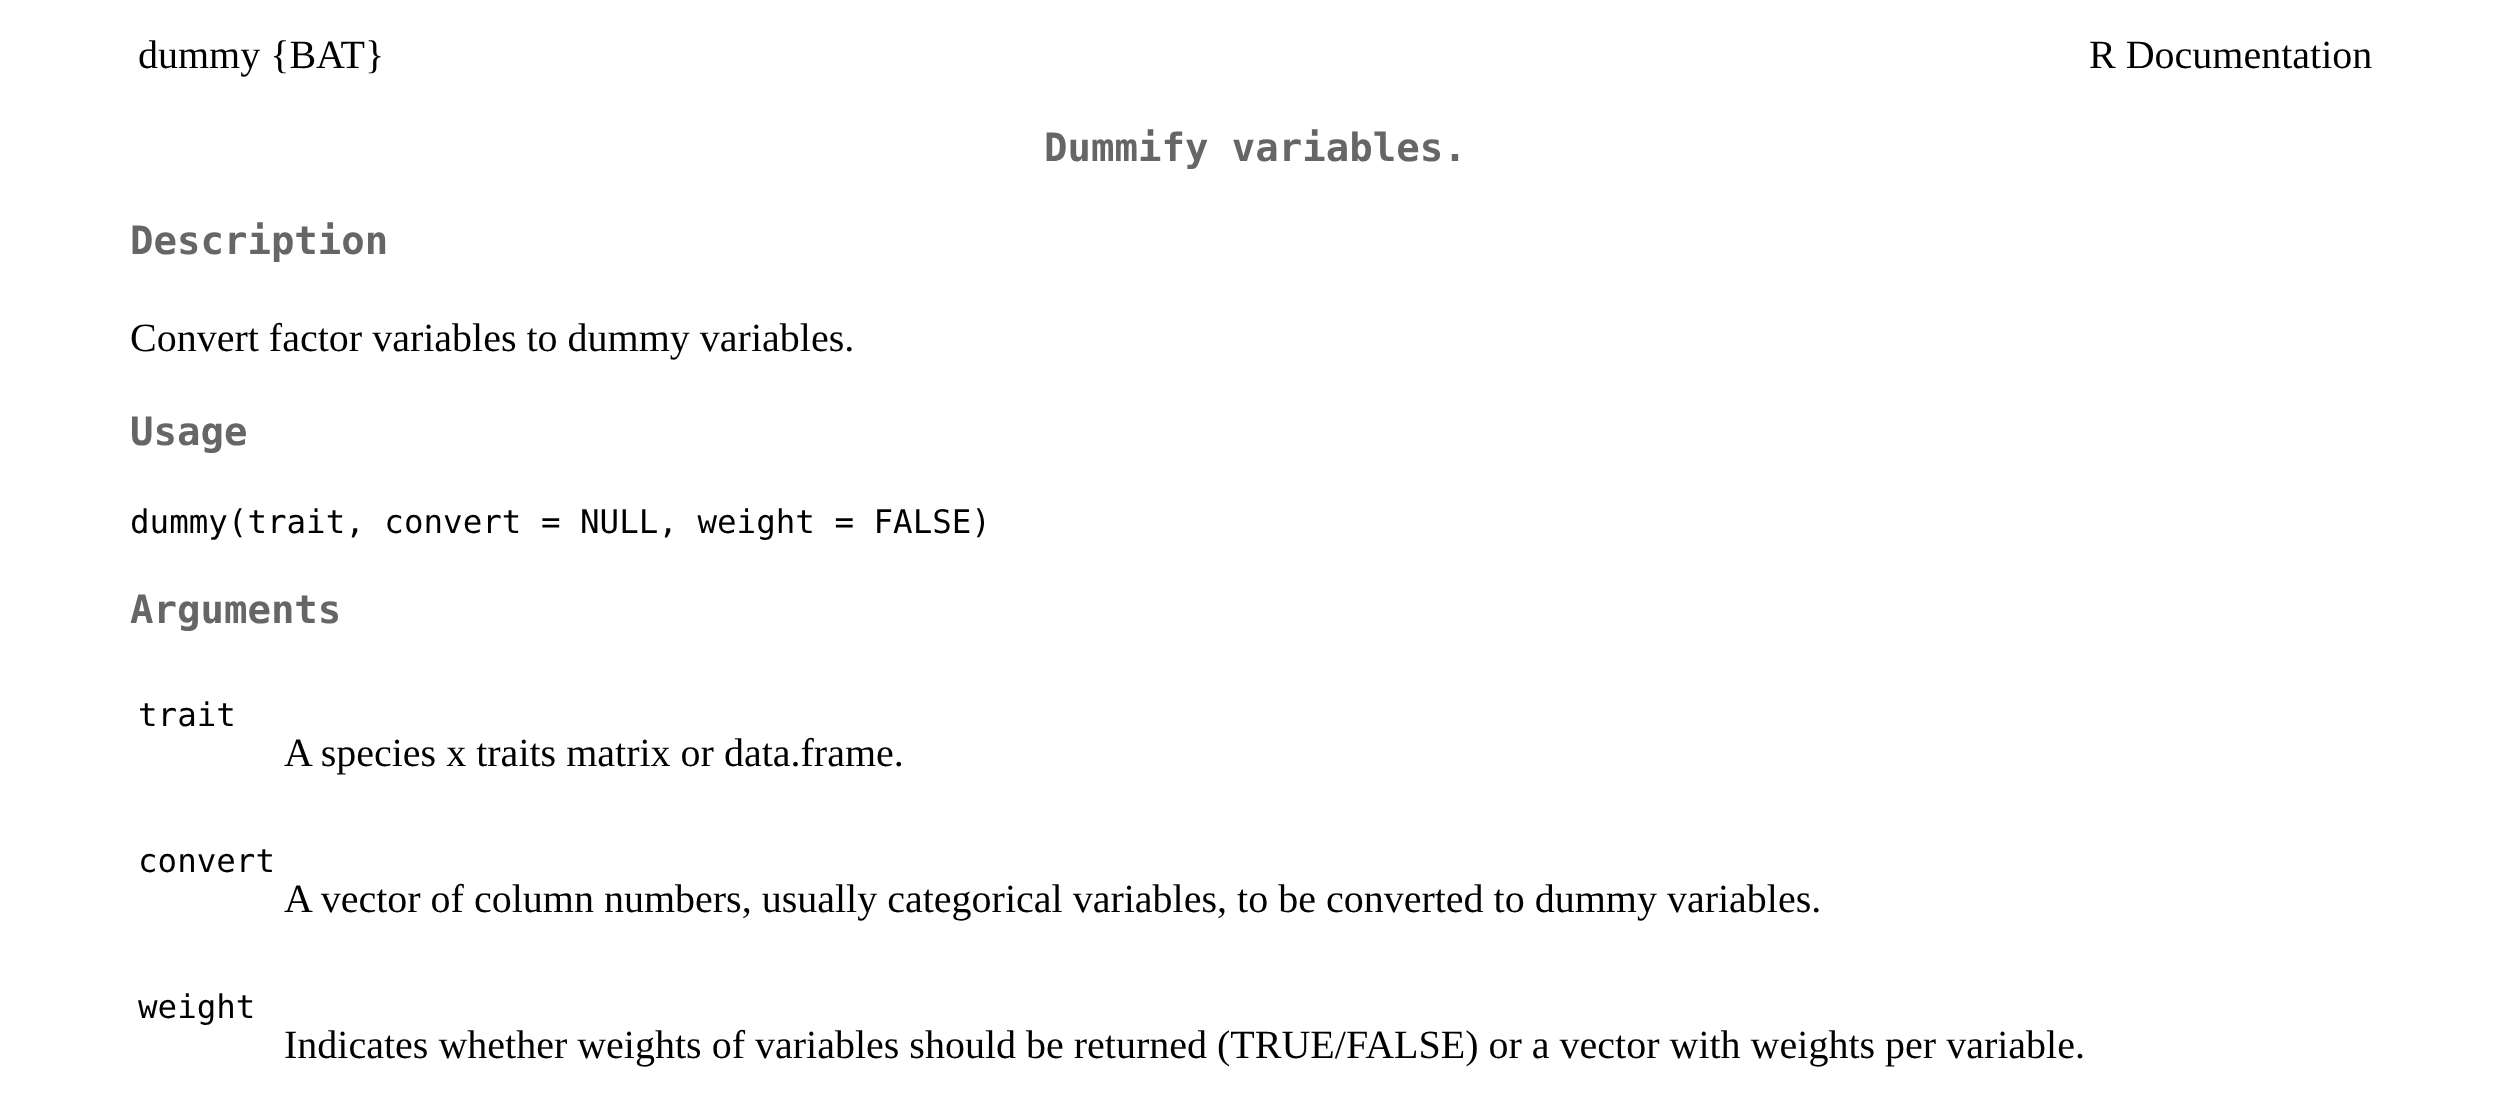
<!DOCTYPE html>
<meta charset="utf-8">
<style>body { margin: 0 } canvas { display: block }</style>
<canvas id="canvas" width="2510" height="1106"></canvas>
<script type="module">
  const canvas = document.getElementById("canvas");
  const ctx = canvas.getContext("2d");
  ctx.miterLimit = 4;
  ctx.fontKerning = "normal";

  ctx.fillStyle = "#ffffff";
  ctx.fillRect(0, 0, 2510, 1106);
  ctx.font = "40px Liberation Serif";
  ctx.fillStyle = "#000000";
  ctx.fillText("dummy {BAT}", 138, 68);
  ctx.fillText("R Documentation", 2089, 68);
  ctx.font = "bold 39px DejaVu Sans Mono";
  ctx.fillStyle = "#666666";
  ctx.fillText("Dummify variables.", 1044, 161);
  ctx.fillText("Description", 130, 254);
  ctx.font = "40px Liberation Serif";
  ctx.fillStyle = "#000000";
  ctx.fillText("Convert factor variables to dummy variables.", 130, 351);
  ctx.font = "bold 39px DejaVu Sans Mono";
  ctx.fillStyle = "#666666";
  ctx.fillText("Usage", 130, 445);
  ctx.font = "32.5px DejaVu Sans Mono";
  ctx.fillStyle = "#000000";
  ctx.fillText("dummy(trait, convert = NULL, weight = FALSE)", 130, 533);
  ctx.font = "bold 39px DejaVu Sans Mono";
  ctx.fillStyle = "#666666";
  ctx.fillText("Arguments", 130, 623);
  ctx.font = "32.5px DejaVu Sans Mono";
  ctx.fillStyle = "#000000";
  ctx.fillText("trait", 138, 726);
  ctx.font = "40px Liberation Serif";
  ctx.fillText("A species x traits matrix or data.frame.", 284, 766);
  ctx.font = "32.5px DejaVu Sans Mono";
  ctx.fillText("convert", 138, 872);
  ctx.font = "40px Liberation Serif";
  ctx.fillText("A vector of column numbers, usually categorical variables, to be converted to dummy variables.", 284, 912);
  ctx.font = "32.5px DejaVu Sans Mono";
  ctx.fillText("weight", 138, 1018);
  ctx.font = "40px Liberation Serif";
  ctx.fillText("Indicates whether weights of variables should be returned (TRUE/FALSE) or a vector with weights per variable.", 284, 1058);
</script>
